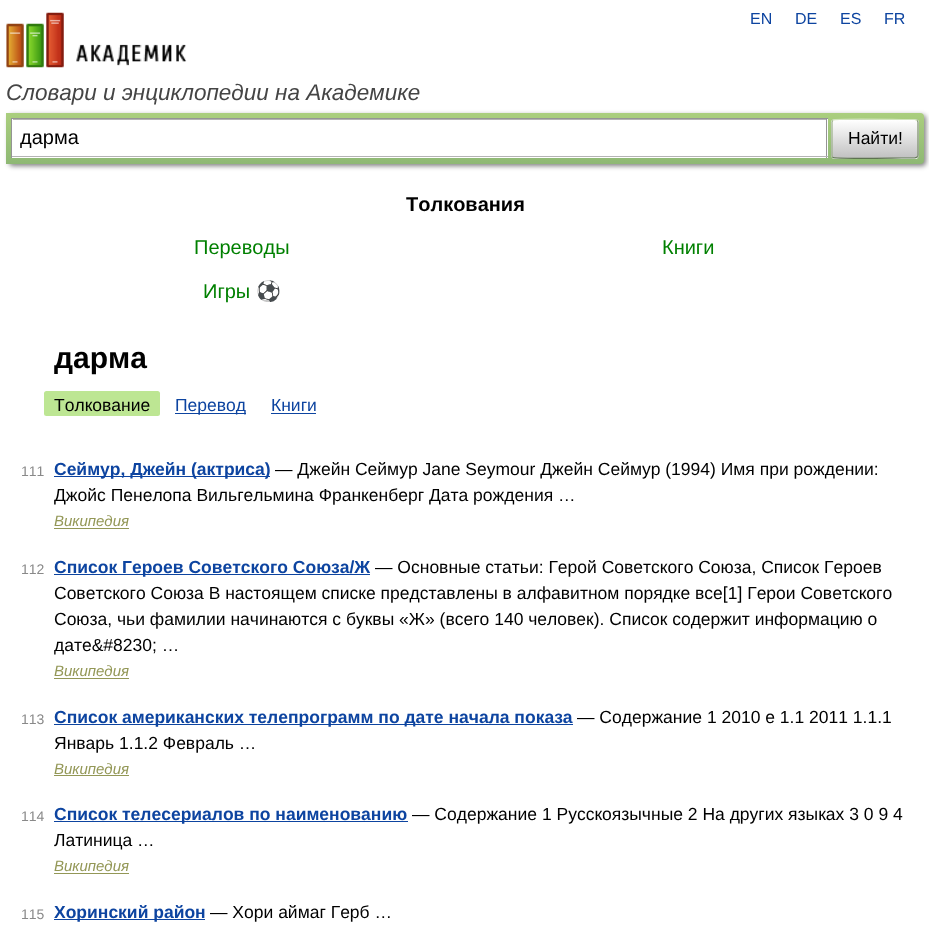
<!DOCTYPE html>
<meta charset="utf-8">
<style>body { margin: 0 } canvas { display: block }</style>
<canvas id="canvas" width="929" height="928"></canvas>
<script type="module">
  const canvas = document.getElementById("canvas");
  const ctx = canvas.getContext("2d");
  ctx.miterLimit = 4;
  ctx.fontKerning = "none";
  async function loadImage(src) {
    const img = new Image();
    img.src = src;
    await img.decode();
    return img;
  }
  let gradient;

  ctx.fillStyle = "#ffffff";
  ctx.fillRect(0, 0, 929, 928);
  ctx.drawImage(await loadImage("img1.png"), 6, 12, 181, 56);
  ctx.font = "16px Liberation Sans";
  ctx.fillStyle = "#0d44a0";
  ctx.fillText("EN", 750, 24);
  ctx.fillText("DE", 795, 24);
  ctx.fillText("ES", 840, 24);
  ctx.fillText("FR", 884, 24);
  ctx.font = "italic 22.5px Liberation Sans";
  ctx.fillStyle = "#454545";
  ctx.fillText("Словари и энциклопедии на Академике", 6, 100);
  ctx.fillStyle = "rgba(0, 0, 0, 0.5)";
  ctx.filter = "blur(2.5px)";
  ctx.beginPath();
  ctx.roundRect(9, 115, 917, 51, 4);
  ctx.fill();
  ctx.filter = "none";
  gradient = ctx.createLinearGradient(465, 112, 465, 164);
  gradient.addColorStop(0, "#abcf7e");
  gradient.addColorStop(1, "#8eb874");
  ctx.fillStyle = gradient;
  ctx.beginPath();
  ctx.roundRect(6, 113, 918, 51, [0, 4, 4, 0]);
  ctx.fill();
  ctx.fillStyle = "#ffffff";
  ctx.fillRect(12, 119, 816, 39);
  ctx.fillStyle = "#b3b3b3";
  ctx.fillRect(13, 119, 813, 1);
  ctx.fillStyle = "#949494";
  ctx.fillRect(11, 118, 817, 1);
  ctx.fillRect(826, 118, 1, 40);
  ctx.fillStyle = "#b4b4b4";
  ctx.fillRect(11, 156, 817, 1);
  ctx.fillStyle = "#949494";
  ctx.fillRect(11, 118, 1, 40);
  ctx.font = "20px Liberation Sans";
  ctx.fillStyle = "#000000";
  ctx.fillText("дарма", 20, 144);
  ctx.save();
  ctx.beginPath();
  ctx.roundRect(831, 119, 88, 40, 4);
  ctx.clip();
  gradient = ctx.createLinearGradient(875, 83, 875, 120);
  gradient.addColorStop(0, "#ffffff");
  gradient.addColorStop(1, "#c1c1c1");
  ctx.fillStyle = gradient;
  ctx.fillRect(831, 119, 88, 1);
  gradient = ctx.createLinearGradient(875, 120, 875, 158);
  gradient.addColorStop(0, "#ffffff");
  gradient.addColorStop(1, "#c1c1c1");
  ctx.fillStyle = gradient;
  ctx.fillRect(831, 120, 88, 38);
  gradient = ctx.createLinearGradient(875, 158, 875, 195);
  gradient.addColorStop(0, "#ffffff");
  gradient.addColorStop(1, "#c1c1c1");
  ctx.fillStyle = gradient;
  ctx.fillRect(831, 158, 88, 1);
  ctx.restore();
  ctx.beginPath();
  ctx.moveTo(833, 120.5);
  ctx.lineTo(833, 120);
  ctx.bezierCurveTo(835, 118.5, 894, 119.5, 901.5, 119.5);
  ctx.lineTo(915, 119.5);
  ctx.lineTo(917, 120.5);
  ctx.strokeStyle = "#d1e4bc";
  ctx.lineWidth = 1.2;
  ctx.stroke();
  ctx.beginPath();
  ctx.moveTo(917, 120.5);
  ctx.bezierCurveTo(918, 121, 918, 121.5, 918, 122.5);
  ctx.lineTo(918, 155);
  ctx.bezierCurveTo(918, 156, 918, 156.5, 917, 157);
  ctx.strokeStyle = "#7a8e69";
  ctx.stroke();
  ctx.beginPath();
  ctx.moveTo(917, 157);
  ctx.lineTo(915, 158);
  ctx.lineTo(901.5, 158);
  ctx.bezierCurveTo(894, 158, 835, 159, 833, 157.5);
  ctx.lineTo(833, 157);
  ctx.strokeStyle = "#5d7250";
  ctx.stroke();
  ctx.beginPath();
  ctx.moveTo(833, 157);
  ctx.bezierCurveTo(832, 156.5, 832, 156, 832, 155);
  ctx.lineTo(832, 122.5);
  ctx.bezierCurveTo(832, 121.5, 832, 121, 833, 120.5);
  ctx.strokeStyle = "#9aae89";
  ctx.stroke();
  ctx.font = "17.5px Liberation Sans";
  ctx.fillText("Найти!", 848, 144);
  ctx.font = "bold 20px Liberation Sans";
  ctx.fillText("Толкования", 406, 211);
  ctx.font = "20px Liberation Sans";
  ctx.fillStyle = "#008000";
  ctx.fillText("Переводы", 194, 254);
  ctx.fillText("Книги", 662, 254);
  ctx.fillText("Игры", 203, 298);
  ctx.font = "20px Noto Color Emoji";
  ctx.fillText("⚽", 256, 298);
  ctx.font = "bold 30px Liberation Sans";
  ctx.fillStyle = "#000000";
  ctx.fillText("дарма", 54, 368);
  ctx.fillStyle = "#bde693";
  ctx.beginPath();
  ctx.roundRect(44, 391, 116, 25, 2.5);
  ctx.fill();
  ctx.font = "17.5px Liberation Sans";
  ctx.fillStyle = "#000000";
  ctx.fillText("Толкование", 54, 411);
  ctx.fillStyle = "#0d44a0";
  ctx.fillRect(175, 413, 71, 1);
  ctx.fillText("Перевод", 175, 411);
  ctx.fillText("Книги", 271, 411);
  ctx.fillRect(271, 413, 45, 1);
  ctx.font = "14px Liberation Sans";
  ctx.fillStyle = "#898989";
  ctx.fillText("111", 21, 476);
  ctx.fillStyle = "#0d44a0";
  ctx.fillRect(54, 476, 216, 1);
  ctx.font = "bold 17.5px Liberation Sans";
  ctx.fillText("Сеймур, Джейн (актриса)", 54, 475);
  ctx.font = "17.5px Liberation Sans";
  ctx.fillStyle = "#000000";
  ctx.fillText("— Джейн Сеймур Jane Seymour Джейн Сеймур (1994) Имя при рождении:", 275, 475);
  ctx.fillText("Джойс Пенелопа Вильгельмина Франкенберг Дата рождения …", 54, 501);
  ctx.font = "italic 15px Liberation Sans";
  ctx.fillStyle = "#939756";
  ctx.fillText("Википедия", 54, 526);
  ctx.fillRect(54, 528, 75, 1);
  ctx.font = "14px Liberation Sans";
  ctx.fillStyle = "#898989";
  ctx.fillText("112", 21, 574);
  ctx.fillStyle = "#0d44a0";
  ctx.fillRect(54, 574, 316, 1);
  ctx.font = "bold 17.5px Liberation Sans";
  ctx.fillText("Список Героев Советского Союза/Ж", 54, 573);
  ctx.font = "17.5px Liberation Sans";
  ctx.fillStyle = "#000000";
  ctx.fillText("— Основные статьи: Герой Советского Союза, Список Героев", 375, 573);
  ctx.fillText("Советского Союза В настоящем списке представлены в алфавитном порядке все[1] Герои Советского", 54, 599);
  ctx.fillText("Союза, чьи фамилии начинаются с буквы «Ж» (всего 140 человек). Список содержит информацию о", 54, 625);
  ctx.fillText("дате&#8230; …", 54, 651);
  ctx.font = "italic 15px Liberation Sans";
  ctx.fillStyle = "#939756";
  ctx.fillText("Википедия", 54, 676);
  ctx.fillRect(54, 678, 75, 1);
  ctx.font = "14px Liberation Sans";
  ctx.fillStyle = "#898989";
  ctx.fillText("113", 21, 724);
  ctx.fillStyle = "#0d44a0";
  ctx.fillRect(54, 724, 519, 1);
  ctx.font = "bold 17.5px Liberation Sans";
  ctx.fillText("Список американских телепрограмм по дате начала показа", 54, 723);
  ctx.font = "17.5px Liberation Sans";
  ctx.fillStyle = "#000000";
  ctx.fillText("— Содержание 1 2010 е 1.1 2011 1.1.1", 577, 723);
  ctx.fillText("Январь 1.1.2 Февраль …", 54, 749);
  ctx.font = "italic 15px Liberation Sans";
  ctx.fillStyle = "#939756";
  ctx.fillText("Википедия", 54, 774);
  ctx.fillRect(54, 775, 75, 1);
  ctx.font = "14px Liberation Sans";
  ctx.fillStyle = "#898989";
  ctx.fillText("114", 21, 821);
  ctx.fillStyle = "#0d44a0";
  ctx.fillRect(54, 821, 354, 1);
  ctx.font = "bold 17.5px Liberation Sans";
  ctx.fillText("Список телесериалов по наименованию", 54, 820);
  ctx.font = "17.5px Liberation Sans";
  ctx.fillStyle = "#000000";
  ctx.fillText("— Содержание 1 Русскоязычные 2 На других языках 3 0 9 4", 412, 820);
  ctx.fillText("Латиница …", 54, 846);
  ctx.font = "italic 15px Liberation Sans";
  ctx.fillStyle = "#939756";
  ctx.fillText("Википедия", 54, 871);
  ctx.fillRect(54, 873, 75, 1);
  ctx.font = "14px Liberation Sans";
  ctx.fillStyle = "#898989";
  ctx.fillText("115", 21, 919);
  ctx.fillStyle = "#0d44a0";
  ctx.fillRect(54, 919, 151, 1);
  ctx.font = "bold 17.5px Liberation Sans";
  ctx.fillText("Хоринский район", 54, 918);
  ctx.font = "17.5px Liberation Sans";
  ctx.fillStyle = "#000000";
  ctx.fillText("— Хори аймаг Герб …", 210, 918);
</script>
